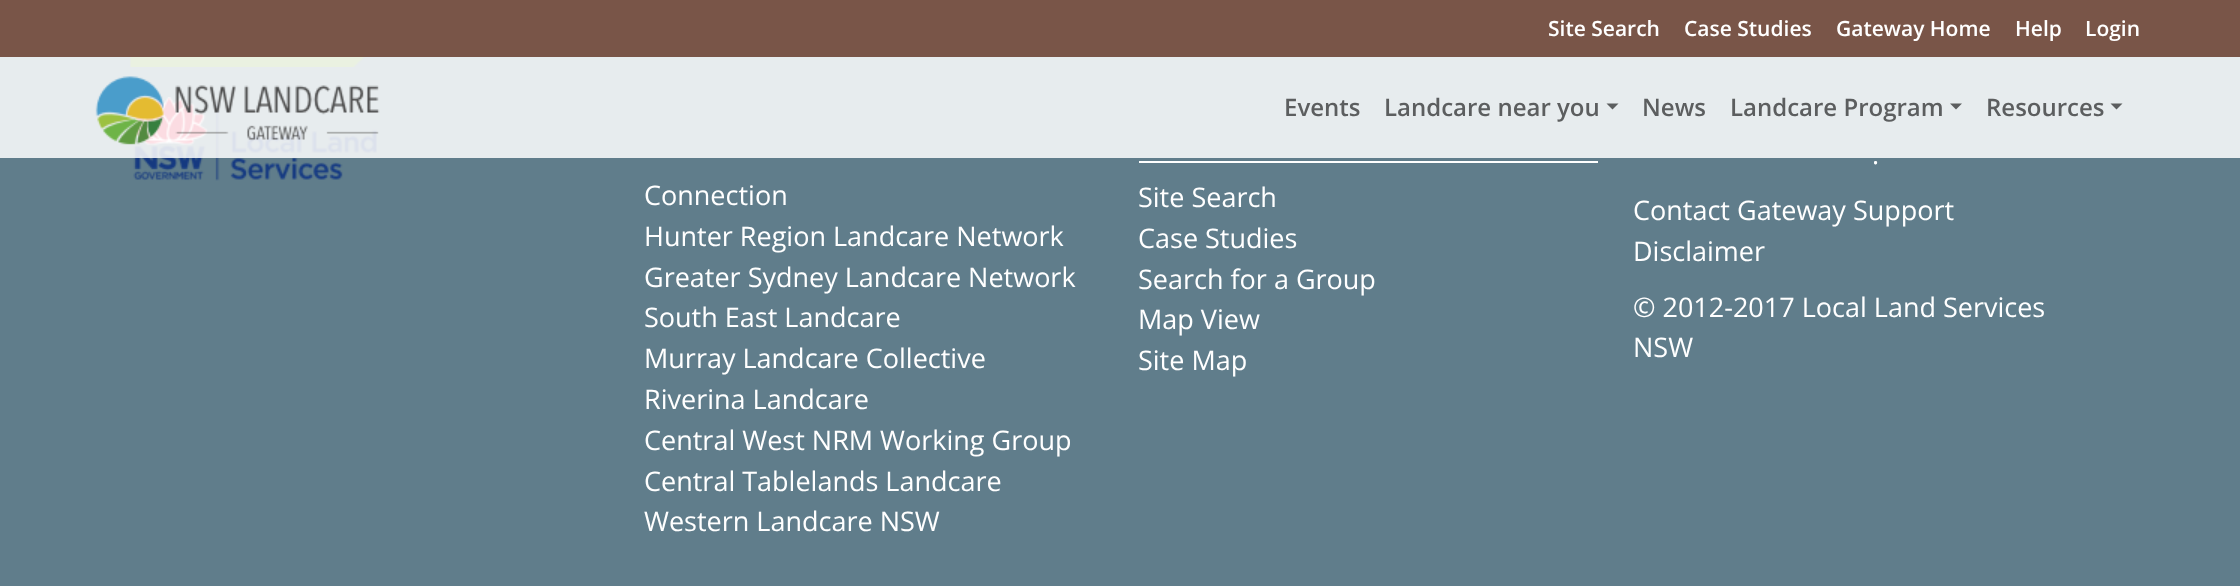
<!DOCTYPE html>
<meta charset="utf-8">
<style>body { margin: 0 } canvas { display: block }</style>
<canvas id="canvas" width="2240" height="586"></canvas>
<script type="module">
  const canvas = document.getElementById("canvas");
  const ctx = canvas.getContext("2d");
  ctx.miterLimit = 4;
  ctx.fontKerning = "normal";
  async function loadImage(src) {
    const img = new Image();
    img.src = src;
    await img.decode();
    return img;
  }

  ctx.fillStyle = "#607d8b";
  ctx.fillRect(0, 0, 2240, 586);
  ctx.fillStyle = "#795548";
  ctx.fillRect(0, 0, 2240, 57);
  ctx.font = "600 21px Open Sans";
  ctx.fillStyle = "#ffffff";
  ctx.fillText("Site Search", 1548, 36);
  ctx.fillText("Case Studies", 1684, 36);
  ctx.fillText("Gateway Home", 1836, 36);
  ctx.fillText("Help", 2015, 36);
  ctx.fillText("Login", 2085, 36);
  ctx.drawImage(await loadImage("img2.png"), 130, 57, 235, 10);
  ctx.drawImage(await loadImage("img3.png"), 130, 97, 247, 84);
  ctx.fillStyle = "rgba(255, 255, 255, 0.85)";
  ctx.fillRect(0, 57, 2240, 101);
  ctx.drawImage(await loadImage("img1.png"), 95, 76, 285, 69);
  ctx.font = "600 24px Open Sans";
  ctx.fillStyle = "#5c5e5f";
  ctx.fillText("Events", 1284, 116);
  ctx.fillText("Landcare near you", 1384, 116);
  ctx.beginPath();
  ctx.moveTo(1606.5, 103.5);
  ctx.lineTo(1618.5, 103.5);
  ctx.lineTo(1612.5, 109.5);
  ctx.closePath();
  ctx.fill();
  ctx.fillText("News", 1642, 116);
  ctx.fillText("Landcare Program", 1730, 116);
  ctx.fillStyle = "rgba(0, 0, 0, 0.6)";
  ctx.beginPath();
  ctx.moveTo(1950, 103.5);
  ctx.lineTo(1962, 103.5);
  ctx.lineTo(1956, 109.5);
  ctx.closePath();
  ctx.fill();
  ctx.fillStyle = "#5c5e5f";
  ctx.fillText("Resources", 1986, 116);
  ctx.beginPath();
  ctx.moveTo(2110.5, 103.5);
  ctx.lineTo(2122.5, 103.5);
  ctx.lineTo(2116.5, 109.5);
  ctx.closePath();
  ctx.fill();
  ctx.font = "27px Open Sans";
  ctx.fillStyle = "#ffffff";
  ctx.fillText("Connection", 644, 205);
  ctx.fillText("Hunter Region Landcare Network", 644, 246);
  ctx.fillText("Greater Sydney Landcare Network", 644, 287);
  ctx.fillText("South East Landcare", 644, 327);
  ctx.fillText("Murray Landcare Collective", 644, 368);
  ctx.fillText("Riverina Landcare", 644, 409);
  ctx.fillText("Central West NRM Working Group", 644, 450);
  ctx.fillText("Central Tablelands Landcare", 644, 491);
  ctx.fillText("Western Landcare NSW", 644, 531);
  ctx.fillRect(1139, 161, 459, 2);
  ctx.fillText("Site Search", 1138, 207);
  ctx.fillText("Case Studies", 1138, 248);
  ctx.fillText("Search for a Group", 1138, 289);
  ctx.fillText("Map View", 1138, 329);
  ctx.fillText("Site Map", 1138, 370);
  ctx.fillText(".", 1872, 164);
  ctx.fillText("Contact Gateway Support", 1633, 220);
  ctx.fillText("Disclaimer", 1633, 261);
  ctx.fillText("© 2012-2017 Local Land Services", 1633, 317);
  ctx.fillText("NSW", 1633, 357);
</script>
